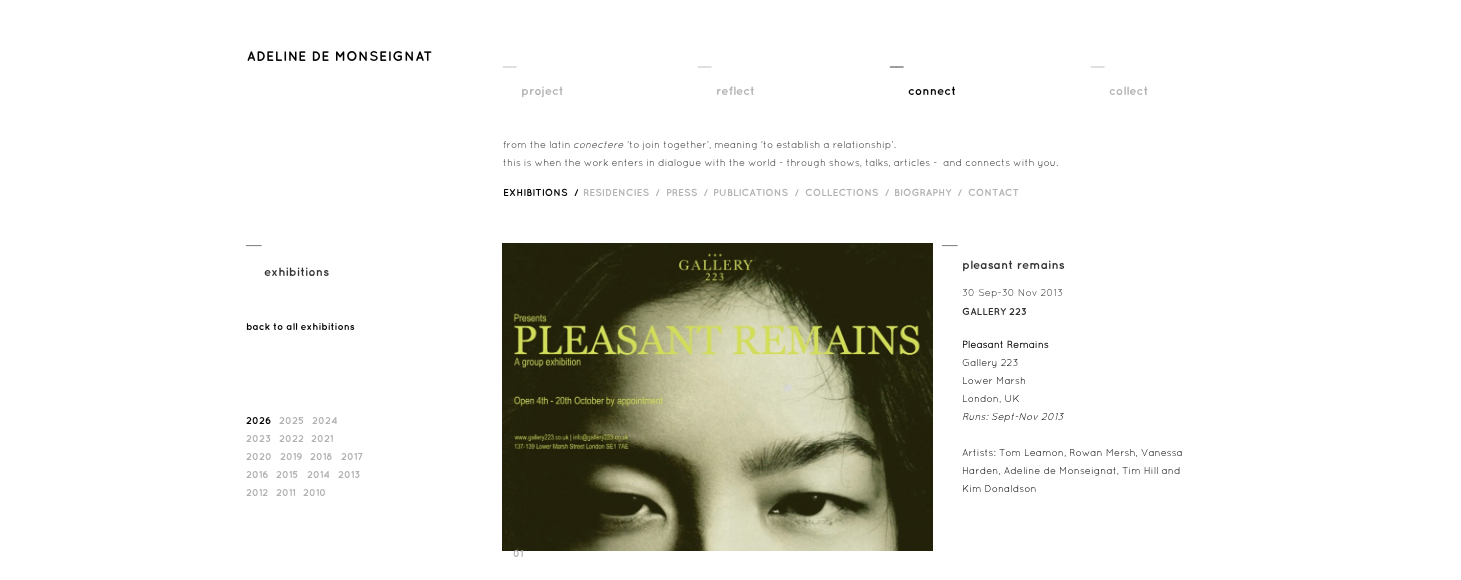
<!DOCTYPE html>
<meta charset="utf-8">
<style>body { margin: 0 } canvas { display: block }</style>
<canvas id="canvas" width="1461" height="580"></canvas>
<script type="module">
  const canvas = document.getElementById("canvas");
  const ctx = canvas.getContext("2d");
  ctx.miterLimit = 4;
  ctx.fontKerning = "normal";
  async function loadImage(src) {
    const img = new Image();
    img.src = src;
    await img.decode();
    return img;
  }

  ctx.fillStyle = "#ffffff";
  ctx.fillRect(0, 0, 1461, 580);
  ctx.drawImage(await loadImage("img1.png"), 247, 51, 185, 10);
  ctx.font = "12px Liberation Sans";
  ctx.fillStyle = "#b2b2b2";
  ctx.fillText("__", 503, 65);
  ctx.font = "bold 12px Quicksand";
  ctx.fillText("project", 521, 95);
  ctx.font = "12px Liberation Sans";
  ctx.fillText("__", 698, 65);
  ctx.font = "bold 12px Quicksand";
  ctx.fillText("reflect", 716, 95);
  ctx.font = "12px Liberation Sans";
  ctx.fillStyle = "#000000";
  ctx.fillText("__", 890, 65);
  ctx.font = "bold 12px Quicksand";
  ctx.fillText("connect", 908, 95);
  ctx.font = "12px Liberation Sans";
  ctx.fillStyle = "#b2b2b2";
  ctx.fillText("__", 1091, 65);
  ctx.font = "bold 12px Quicksand";
  ctx.fillText("collect", 1109, 95);
  ctx.font = "10px Quicksand";
  ctx.fillStyle = "#333333";
  ctx.fillText("from the latin", 503, 148);
  ctx.font = "italic 10px Quicksand";
  ctx.fillText("conectere", 573, 148);
  ctx.font = "10px Quicksand";
  ctx.fillText("‘to join together’, meaning ‘to establish a relationship’.", 627, 148);
  ctx.fillText("this is when the work enters in dialogue with the world - through shows, talks, articles -  and connects with you.", 503, 166);
  ctx.font = "bold 10px Quicksand";
  ctx.fillStyle = "#000000";
  ctx.fillText("EXHIBITIONS  /", 503, 196);
  ctx.fillStyle = "#b2b2b2";
  ctx.fillText("RESIDENCIES  /", 583, 196);
  ctx.fillText("PRESS  /", 666, 196);
  ctx.fillText("PUBLICATIONS  /", 713, 196);
  ctx.fillText("COLLECTIONS  /", 805, 196);
  ctx.fillText("BIOGRAPHY  /", 894, 196);
  ctx.fillText("CONTACT", 968, 196);
  ctx.font = "14px Liberation Sans";
  ctx.fillStyle = "#333333";
  ctx.fillText("¯¯", 246, 256);
  ctx.font = "bold 12px Quicksand";
  ctx.fillText("exhibitions", 264, 276);
  ctx.font = "bold 10px Quicksand";
  ctx.fillStyle = "#000000";
  ctx.fillText("back to all exhibitions", 246, 330);
  ctx.fillText("2026", 246, 424);
  ctx.fillStyle = "#b2b2b2";
  ctx.fillText("2025", 279, 424);
  ctx.fillText("2024", 312, 424);
  ctx.fillText("2023", 246, 442);
  ctx.fillText("2022", 279, 442);
  ctx.fillText("2021", 311, 442);
  ctx.fillText("2020", 246, 460);
  ctx.fillText("2019", 280, 460);
  ctx.fillText("2018", 310, 460);
  ctx.fillText("2017", 341, 460);
  ctx.fillText("2016", 246, 478);
  ctx.fillText("2015", 276, 478);
  ctx.fillText("2014", 307, 478);
  ctx.fillText("2013", 338, 478);
  ctx.fillText("2012", 246, 496);
  ctx.fillText("2011", 276, 496);
  ctx.fillText("2010", 303, 496);
  ctx.font = "14px Liberation Sans";
  ctx.fillStyle = "#333333";
  ctx.fillText("¯¯", 942, 256);
  ctx.font = "bold 12px Quicksand";
  ctx.fillText("pleasant remains", 962, 269);
  ctx.font = "10px Quicksand";
  ctx.fillText("30 Sep-30 Nov 2013", 962, 296);
  ctx.font = "bold 10px Quicksand";
  ctx.fillText("GALLERY 223", 962, 315);
  ctx.font = "bold 10px 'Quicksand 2'";
  ctx.fillStyle = "#000000";
  ctx.fillText("Pleasant Remains", 962, 348);
  ctx.font = "10px Quicksand";
  ctx.fillText("Gallery 223", 962, 366);
  ctx.fillText("Lower Marsh", 962, 384);
  ctx.fillText("London, UK", 962, 402);
  ctx.font = "italic 10px Quicksand";
  ctx.fillText("Runs: Sept-Nov 2013", 962, 420);
  ctx.font = "10px Quicksand";
  ctx.fillText("Artists: Tom Leamon, Rowan Mersh, Vanessa", 962, 456);
  ctx.fillText("Harden, Adeline de Monseignat, Tim Hill and", 962, 474);
  ctx.fillText("Kim Donaldson", 962, 492);
  ctx.drawImage(await loadImage("img2.png"), 502, 243, 431, 308);
  ctx.font = "bold 10px Quicksand";
  ctx.fillStyle = "#b2b2b2";
  ctx.fillText("01", 513, 557);
</script>
